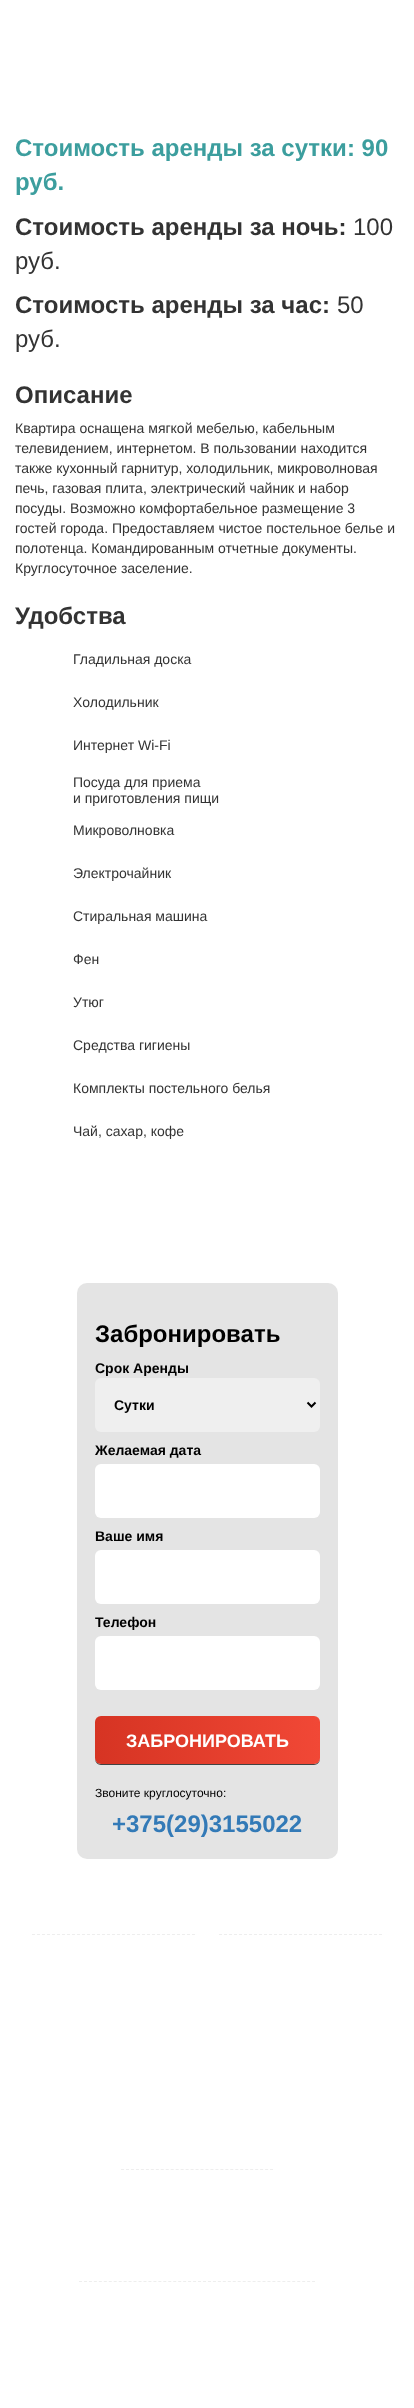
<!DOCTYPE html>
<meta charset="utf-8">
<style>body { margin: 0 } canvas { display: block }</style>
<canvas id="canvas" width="414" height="2408"></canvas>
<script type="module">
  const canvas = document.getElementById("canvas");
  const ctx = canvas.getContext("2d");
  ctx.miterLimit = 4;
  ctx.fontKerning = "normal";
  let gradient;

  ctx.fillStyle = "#ffffff";
  ctx.fillRect(0, 0, 414, 2408);
  ctx.font = "bold 24px Liberation Sans";
  ctx.fillStyle = "#3c9e9e";
  ctx.fillText("Стоимость аренды за сутки: 90", 15, 156);
  ctx.fillText("руб.", 15, 190);
  ctx.fillStyle = "#333333";
  ctx.fillText("Стоимость аренды за ночь:", 15, 235);
  ctx.font = "24px Liberation Sans";
  ctx.fillText("100", 353, 235);
  ctx.fillText("руб.", 15, 269);
  ctx.font = "bold 24px Liberation Sans";
  ctx.fillText("Стоимость аренды за час:", 15, 313);
  ctx.font = "24px Liberation Sans";
  ctx.fillText("50", 337, 313);
  ctx.fillText("руб.", 15, 347);
  ctx.font = "bold 24px Liberation Sans";
  ctx.fillText("Описание", 15, 403);
  ctx.font = "14px Liberation Sans";
  ctx.fillText("Квартира оснащена мягкой мебелью, кабельным", 15, 433);
  ctx.fillText("телевидением, интернетом. В пользовании находится", 15, 453);
  ctx.fillText("также кухонный гарнитур, холодильник, микроволновая", 15, 473);
  ctx.fillText("печь, газовая плита, электрический чайник и набор", 15, 493);
  ctx.fillText("посуды. Возможно комфортабельное размещение 3", 15, 513);
  ctx.fillText("гостей города. Предоставляем чистое постельное белье и", 15, 533);
  ctx.fillText("полотенца. Командированным отчетные документы.", 15, 553);
  ctx.fillText("Круглосуточное заселение.", 15, 573);
  ctx.font = "bold 24px Liberation Sans";
  ctx.fillText("Удобства", 15, 624);
  ctx.font = "14px Liberation Sans";
  ctx.fillText("Гладильная доска", 73, 664);
  ctx.fillText("Холодильник", 73, 707);
  ctx.fillText("Интернет Wi-Fi", 73, 750);
  ctx.fillText("Посуда для приема", 73, 787);
  ctx.fillText("и приготовления пищи", 73, 803);
  ctx.fillText("Микроволновка", 73, 835);
  ctx.fillText("Электрочайник", 73, 878);
  ctx.fillText("Стиральная машина", 73, 921);
  ctx.fillText("Фен", 73, 964);
  ctx.fillText("Утюг", 73, 1007);
  ctx.fillText("Средства гигиены", 73, 1050);
  ctx.fillText("Комплекты постельного белья", 73, 1093);
  ctx.fillText("Чай, сахар, кофе", 73, 1136);
  ctx.fillStyle = "#e4e4e4";
  ctx.beginPath();
  ctx.roundRect(77, 1283, 261, 576, 10);
  ctx.fill();
  ctx.font = "bold 24px Liberation Sans";
  ctx.fillStyle = "#000000";
  ctx.fillText("Забронировать", 95, 1342);
  ctx.font = "bold 14px Liberation Sans";
  ctx.fillText("Срок Аренды", 95, 1373);
  ctx.fillStyle = "#efefef";
  ctx.beginPath();
  ctx.roundRect(95, 1378, 225, 54, 6);
  ctx.fill();
  ctx.beginPath();
  ctx.moveTo(307.5, 1402.5);
  ctx.lineTo(311.5, 1406.5);
  ctx.lineTo(315.5, 1402.5);
  ctx.strokeStyle = "#000000";
  ctx.lineWidth = 2;
  ctx.stroke();
  ctx.fillStyle = "#000000";
  ctx.fillText("Сутки", 114, 1410);
  ctx.fillText("Желаемая дата", 95, 1455);
  ctx.fillStyle = "#ffffff";
  ctx.beginPath();
  ctx.roundRect(95, 1464, 225, 54, 6);
  ctx.fill();
  ctx.fillStyle = "#000000";
  ctx.fillText("Ваше имя", 95, 1541);
  ctx.fillStyle = "#ffffff";
  ctx.beginPath();
  ctx.roundRect(95, 1550, 225, 54, 6);
  ctx.fill();
  ctx.fillStyle = "#000000";
  ctx.fillText("Телефон", 95, 1627);
  ctx.fillStyle = "#ffffff";
  ctx.beginPath();
  ctx.roundRect(95, 1636, 225, 54, 6);
  ctx.fill();
  ctx.fillStyle = "#424242";
  ctx.beginPath();
  ctx.moveTo(95, 1758);
  ctx.lineTo(95, 1759);
  ctx.bezierCurveTo(95, 1762, 98, 1765, 101, 1765);
  ctx.lineTo(314, 1765);
  ctx.bezierCurveTo(317, 1765, 320, 1762, 320, 1759);
  ctx.lineTo(320, 1758);
  ctx.bezierCurveTo(320, 1761, 317, 1764, 314, 1764);
  ctx.lineTo(101, 1764);
  ctx.bezierCurveTo(98, 1764, 95, 1761, 95, 1758);
  ctx.closePath();
  ctx.fill();
  gradient = ctx.createLinearGradient(95, 1740, 320, 1740);
  gradient.addColorStop(0, "#d63423");
  gradient.addColorStop(1, "#f14836");
  ctx.fillStyle = gradient;
  ctx.beginPath();
  ctx.roundRect(95, 1716, 225, 48, 6);
  ctx.fill();
  ctx.font = "bold 18px Liberation Sans";
  ctx.fillStyle = "#ffffff";
  ctx.fillText("ЗАБРОНИРОВАТЬ", 126, 1747);
  ctx.font = "12px Liberation Sans";
  ctx.fillStyle = "#000000";
  ctx.fillText("Звоните круглосуточно:", 95, 1797);
  ctx.font = "bold 24px Liberation Sans";
  ctx.fillStyle = "#337ab7";
  ctx.fillText("+375(29)3155022", 112, 1832);
  ctx.beginPath();
  ctx.moveTo(32, 1934.5);
  ctx.lineTo(195, 1934.5);
  ctx.strokeStyle = "#eeeeee";
  ctx.lineWidth = 1;
  ctx.setLineDash([3, 2]);
  ctx.stroke();
  ctx.beginPath();
  ctx.moveTo(219, 1934.5);
  ctx.lineTo(382, 1934.5);
  ctx.stroke();
  ctx.beginPath();
  ctx.moveTo(121, 2169.5);
  ctx.lineTo(273, 2169.5);
  ctx.setLineDash([3, 1.97]);
  ctx.stroke();
  ctx.beginPath();
  ctx.moveTo(79, 2281.5);
  ctx.lineTo(315, 2281.5);
  ctx.setLineDash([3, 1.96]);
  ctx.stroke();
</script>
